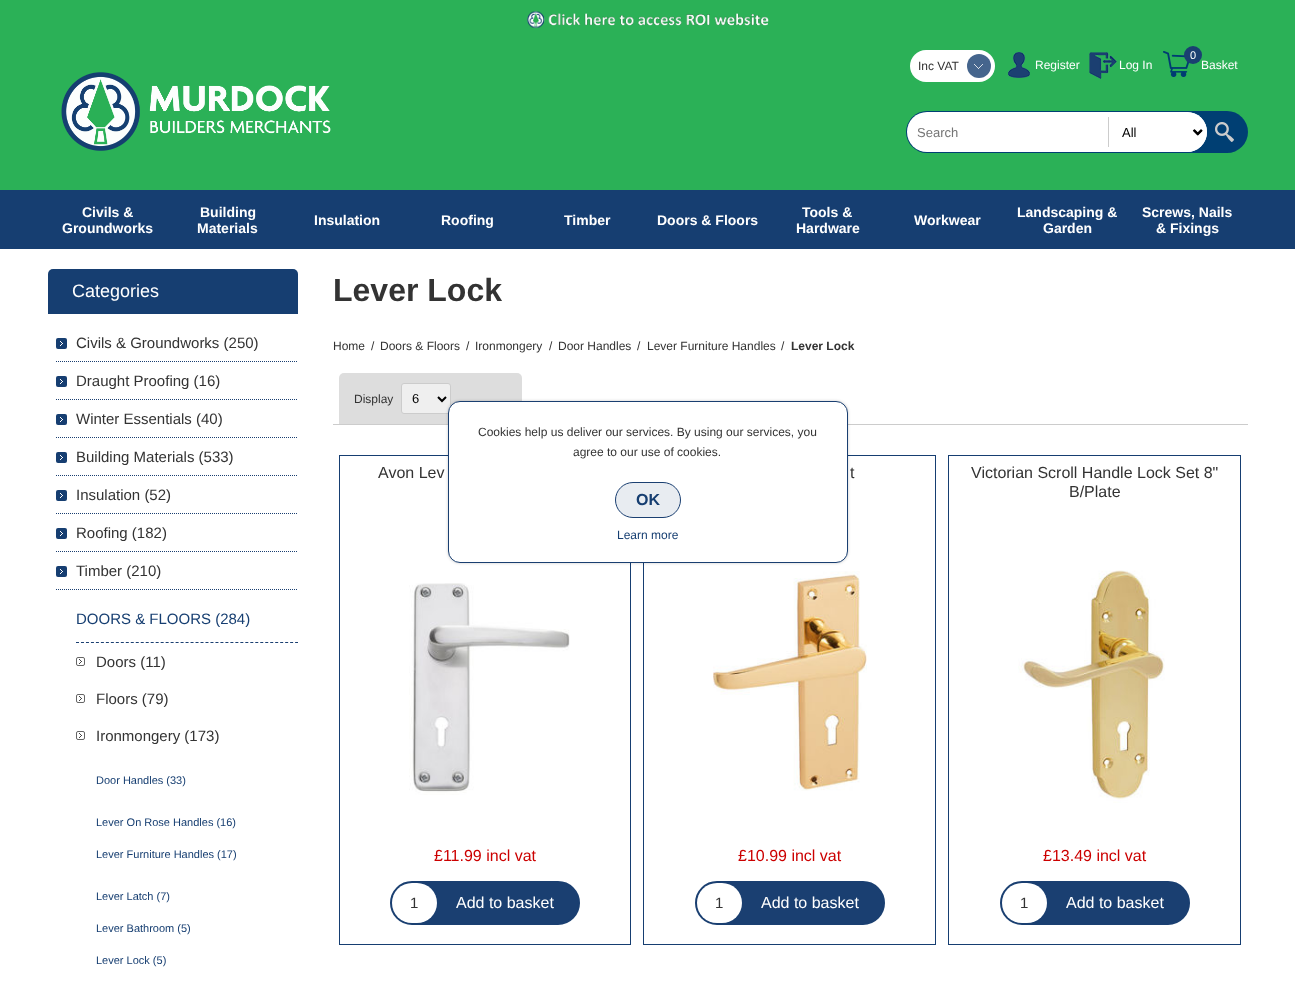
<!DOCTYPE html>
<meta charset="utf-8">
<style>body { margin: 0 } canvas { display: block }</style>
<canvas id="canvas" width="1295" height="982"></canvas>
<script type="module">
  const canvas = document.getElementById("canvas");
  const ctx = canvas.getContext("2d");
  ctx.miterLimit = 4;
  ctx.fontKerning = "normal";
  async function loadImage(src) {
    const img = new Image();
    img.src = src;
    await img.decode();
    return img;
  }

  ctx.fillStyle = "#ffffff";
  ctx.fillRect(0, 0, 1295, 982);
  ctx.fillStyle = "#2bb157";
  ctx.fillRect(0, 0, 1295, 190);
  ctx.drawImage(await loadImage("img1.png"), 527, 11, 242, 18);
  ctx.fillStyle = "#ffffff";
  ctx.beginPath();
  ctx.roundRect(910, 50, 85, 32, 16);
  ctx.fill();
  ctx.font = "12px Liberation Sans";
  ctx.fillStyle = "#333333";
  ctx.fillText("Inc VAT", 918, 70);
  ctx.fillStyle = "#45658d";
  ctx.beginPath();
  ctx.arc(979, 66, 12, 0, Math.PI * 2);
  ctx.fill();
  ctx.drawImage(await loadImage("img2.png"), 974, 64, 9, 5);
  ctx.drawImage(await loadImage("img3.png"), 1008, 52, 22, 26);
  ctx.fillStyle = "#ffffff";
  ctx.fillText("Register", 1035, 69);
  ctx.drawImage(await loadImage("img4.png"), 1089, 52, 28, 27);
  ctx.fillText("Log In", 1119, 69);
  ctx.drawImage(await loadImage("img5.png"), 1163, 51, 26, 26);
  ctx.fillText("Basket", 1201, 69);
  ctx.fillStyle = "#1a3f71";
  ctx.beginPath();
  ctx.arc(1193, 55, 9, 0, Math.PI * 2);
  ctx.fill();
  ctx.font = "11px Liberation Sans";
  ctx.fillStyle = "#ffffff";
  ctx.fillText("0", 1190, 59);
  ctx.drawImage(await loadImage("img6.png"), 61, 72, 270, 79);
  ctx.fillStyle = "#003f73";
  ctx.beginPath();
  ctx.roundRect(906, 111, 342, 42, 21);
  ctx.fill();
  ctx.fillStyle = "#ffffff";
  ctx.beginPath();
  ctx.roundRect(907, 112, 300, 40, 20);
  ctx.fill();
  ctx.font = "13px Liberation Sans";
  ctx.fillStyle = "#757575";
  ctx.fillText("Search", 917, 137);
  ctx.fillStyle = "#ffffff";
  ctx.beginPath();
  ctx.roundRect(1107, 112, 100, 40, [0, 20, 20, 0]);
  ctx.fill();
  ctx.drawImage(await loadImage("img7.png"), 1108, 117, 95, 30);
  ctx.beginPath();
  ctx.moveTo(1193.5, 130);
  ctx.lineTo(1197.5, 134);
  ctx.lineTo(1201.5, 130);
  ctx.strokeStyle = "#000000";
  ctx.lineWidth = 2;
  ctx.stroke();
  ctx.fillStyle = "#000000";
  ctx.fillText("All", 1122, 137);
  ctx.drawImage(await loadImage("img8.png"), 1215, 122, 19, 20);
  ctx.fillStyle = "#163e71";
  ctx.fillRect(0, 190, 1295, 59);
  ctx.font = "bold 14px Liberation Sans";
  ctx.fillStyle = "#ffffff";
  ctx.fillText("Civils &", 82, 217);
  ctx.fillText("Groundworks", 62, 233);
  ctx.fillText("Building", 200, 217);
  ctx.fillText("Materials", 197, 233);
  ctx.fillText("Insulation", 314, 225);
  ctx.fillText("Roofing", 441, 225);
  ctx.fillText("Timber", 564, 225);
  ctx.fillText("Doors & Floors", 657, 225);
  ctx.fillText("Tools &", 802, 217);
  ctx.fillText("Hardware", 796, 233);
  ctx.fillText("Workwear", 914, 225);
  ctx.fillText("Landscaping &", 1017, 217);
  ctx.fillText("Garden", 1043, 233);
  ctx.fillText("Screws, Nails", 1142, 217);
  ctx.fillText("& Fixings", 1156, 233);
  ctx.fillStyle = "#163e71";
  ctx.beginPath();
  ctx.roundRect(48, 269, 250, 45, [5, 5, 0, 0]);
  ctx.fill();
  ctx.font = "18px Liberation Sans";
  ctx.fillStyle = "#ffffff";
  ctx.fillText("Categories", 72, 297);
  ctx.beginPath();
  ctx.moveTo(56, 361.5);
  ctx.lineTo(298, 361.5);
  ctx.strokeStyle = "#1a3f71";
  ctx.lineWidth = 1;
  ctx.setLineDash([1, 1]);
  ctx.stroke();
  ctx.fillStyle = "#163e71";
  ctx.beginPath();
  ctx.roundRect(56, 338, 11, 11, 2);
  ctx.fill();
  ctx.drawImage(await loadImage("img9.png"), 60, 341, 3, 5);
  ctx.font = "15px Liberation Sans";
  ctx.fillStyle = "#333333";
  ctx.fillText("Civils & Groundworks (250)", 76, 348);
  ctx.beginPath();
  ctx.moveTo(56, 399.5);
  ctx.lineTo(298, 399.5);
  ctx.stroke();
  ctx.fillStyle = "#163e71";
  ctx.beginPath();
  ctx.roundRect(56, 376, 11, 11, 2);
  ctx.fill();
  ctx.drawImage(await loadImage("img9.png"), 60, 379, 3, 5);
  ctx.fillStyle = "#333333";
  ctx.fillText("Draught Proofing (16)", 76, 386);
  ctx.beginPath();
  ctx.moveTo(56, 437.5);
  ctx.lineTo(298, 437.5);
  ctx.stroke();
  ctx.fillStyle = "#163e71";
  ctx.beginPath();
  ctx.roundRect(56, 414, 11, 11, 2);
  ctx.fill();
  ctx.drawImage(await loadImage("img9.png"), 60, 417, 3, 5);
  ctx.fillStyle = "#333333";
  ctx.fillText("Winter Essentials (40)", 76, 424);
  ctx.beginPath();
  ctx.moveTo(56, 475.5);
  ctx.lineTo(298, 475.5);
  ctx.stroke();
  ctx.fillStyle = "#163e71";
  ctx.beginPath();
  ctx.roundRect(56, 452, 11, 11, 2);
  ctx.fill();
  ctx.drawImage(await loadImage("img9.png"), 60, 455, 3, 5);
  ctx.fillStyle = "#333333";
  ctx.fillText("Building Materials (533)", 76, 462);
  ctx.beginPath();
  ctx.moveTo(56, 513.5);
  ctx.lineTo(298, 513.5);
  ctx.stroke();
  ctx.fillStyle = "#163e71";
  ctx.beginPath();
  ctx.roundRect(56, 490, 11, 11, 2);
  ctx.fill();
  ctx.drawImage(await loadImage("img9.png"), 60, 493, 3, 5);
  ctx.fillStyle = "#333333";
  ctx.fillText("Insulation (52)", 76, 500);
  ctx.beginPath();
  ctx.moveTo(56, 551.5);
  ctx.lineTo(298, 551.5);
  ctx.stroke();
  ctx.fillStyle = "#163e71";
  ctx.beginPath();
  ctx.roundRect(56, 528, 11, 11, 2);
  ctx.fill();
  ctx.drawImage(await loadImage("img9.png"), 60, 531, 3, 5);
  ctx.fillStyle = "#333333";
  ctx.fillText("Roofing (182)", 76, 538);
  ctx.beginPath();
  ctx.moveTo(56, 589.5);
  ctx.lineTo(298, 589.5);
  ctx.stroke();
  ctx.fillStyle = "#163e71";
  ctx.beginPath();
  ctx.roundRect(56, 566, 11, 11, 2);
  ctx.fill();
  ctx.drawImage(await loadImage("img9.png"), 60, 569, 3, 5);
  ctx.fillStyle = "#333333";
  ctx.fillText("Timber (210)", 76, 576);
  ctx.fillStyle = "#163e71";
  ctx.fillText("DOORS & FLOORS (284)", 76, 624);
  ctx.beginPath();
  ctx.moveTo(76, 642.5);
  ctx.lineTo(298, 642.5);
  ctx.setLineDash([3, 1.98]);
  ctx.stroke();
  ctx.drawImage(await loadImage("img10.png"), 79, 659, 3, 5);
  ctx.beginPath();
  ctx.roundRect(76.5, 657.5, 8, 8, 1.5);
  ctx.strokeStyle = "#666666";
  ctx.setLineDash([]);
  ctx.stroke();
  ctx.fillStyle = "#333333";
  ctx.fillText("Doors (11)", 96, 667);
  ctx.drawImage(await loadImage("img10.png"), 79, 696, 3, 5);
  ctx.beginPath();
  ctx.roundRect(76.5, 694.5, 8, 8, 1.5);
  ctx.stroke();
  ctx.fillText("Floors (79)", 96, 704);
  ctx.drawImage(await loadImage("img10.png"), 79, 733, 3, 5);
  ctx.beginPath();
  ctx.roundRect(76.5, 731.5, 8, 8, 1.5);
  ctx.stroke();
  ctx.fillText("Ironmongery (173)", 96, 741);
  ctx.font = "11px Liberation Sans";
  ctx.fillStyle = "#163e71";
  ctx.fillText("Door Handles (33)", 96, 784);
  ctx.fillText("Lever On Rose Handles (16)", 96, 826);
  ctx.fillText("Lever Furniture Handles (17)", 96, 858);
  ctx.fillText("Lever Latch (7)", 96, 900);
  ctx.fillText("Lever Bathroom (5)", 96, 932);
  ctx.fillText("Lever Lock (5)", 96, 964);
  ctx.font = "bold 32px Liberation Sans";
  ctx.fillStyle = "#333333";
  ctx.fillText("Lever Lock", 333, 301);
  ctx.font = "12px Liberation Sans";
  ctx.fillText("Home", 333, 350);
  ctx.fillText("/", 371, 350);
  ctx.fillText("Doors & Floors", 380, 350);
  ctx.fillText("/", 466, 350);
  ctx.fillText("Ironmongery", 475, 350);
  ctx.fillText("/", 549, 350);
  ctx.fillText("Door Handles", 558, 350);
  ctx.fillText("/", 637, 350);
  ctx.fillText("Lever Furniture Handles", 647, 350);
  ctx.fillText("/", 781, 350);
  ctx.font = "bold 12px Liberation Sans";
  ctx.fillText("Lever Lock", 791, 350);
  ctx.fillStyle = "#cccccc";
  ctx.fillRect(333, 424, 915, 1);
  ctx.fillStyle = "#dddddd";
  ctx.beginPath();
  ctx.roundRect(339, 373, 183, 51, [5, 5, 0, 0]);
  ctx.fill();
  ctx.font = "12px Liberation Sans";
  ctx.fillStyle = "#333333";
  ctx.fillText("Display", 354, 403);
  ctx.fillStyle = "#efefef";
  ctx.beginPath();
  ctx.roundRect(401.5, 383.5, 49, 30, 2.5);
  ctx.fill();
  ctx.strokeStyle = "#cccccc";
  ctx.stroke();
  ctx.beginPath();
  ctx.moveTo(438, 397);
  ctx.lineTo(442, 401);
  ctx.lineTo(446, 397);
  ctx.strokeStyle = "#000000";
  ctx.lineWidth = 2;
  ctx.stroke();
  ctx.font = "13px Liberation Sans";
  ctx.fillStyle = "#000000";
  ctx.fillText("6", 412, 403);
  ctx.strokeStyle = "#163e71";
  ctx.lineWidth = 1;
  ctx.strokeRect(339.5, 455.5, 291, 489);
  ctx.font = "16px Liberation Sans";
  ctx.fillStyle = "#333333";
  ctx.fillText("Avon Lev", 378, 478);
  ctx.drawImage(await loadImage("img11.png"), 409, 583, 161, 212);
  ctx.fillStyle = "#cc0000";
  ctx.fillText("£11.99 incl vat", 434, 861);
  ctx.fillStyle = "#1a3f71";
  ctx.beginPath();
  ctx.roundRect(391, 882, 188, 42, 21);
  ctx.fill();
  ctx.strokeStyle = "#1a3f71";
  ctx.lineWidth = 2;
  ctx.stroke();
  ctx.fillStyle = "#ffffff";
  ctx.beginPath();
  ctx.roundRect(392, 883, 45, 40, 20);
  ctx.fill();
  ctx.font = "15px Liberation Sans";
  ctx.fillStyle = "#333333";
  ctx.fillText("1", 410, 908);
  ctx.font = "16px Liberation Sans";
  ctx.fillStyle = "#ffffff";
  ctx.fillText("Add to basket", 456, 908);
  ctx.strokeStyle = "#163e71";
  ctx.lineWidth = 1;
  ctx.strokeRect(643.5, 455.5, 292, 489);
  ctx.fillStyle = "#333333";
  ctx.fillText("t", 850, 478);
  ctx.drawImage(await loadImage("img12.png"), 713, 571, 154, 220);
  ctx.fillStyle = "#cc0000";
  ctx.fillText("£10.99 incl vat", 738, 861);
  ctx.fillStyle = "#1a3f71";
  ctx.beginPath();
  ctx.roundRect(696, 882, 188, 42, 21);
  ctx.fill();
  ctx.strokeStyle = "#1a3f71";
  ctx.lineWidth = 2;
  ctx.stroke();
  ctx.fillStyle = "#ffffff";
  ctx.beginPath();
  ctx.roundRect(697, 883, 45, 40, 20);
  ctx.fill();
  ctx.font = "15px Liberation Sans";
  ctx.fillStyle = "#333333";
  ctx.fillText("1", 715, 908);
  ctx.font = "16px Liberation Sans";
  ctx.fillStyle = "#ffffff";
  ctx.fillText("Add to basket", 761, 908);
  ctx.strokeStyle = "#163e71";
  ctx.lineWidth = 1;
  ctx.strokeRect(948.5, 455.5, 292, 489);
  ctx.fillStyle = "#333333";
  ctx.fillText("Victorian Scroll Handle Lock Set 8\"", 971, 478);
  ctx.fillText("B/Plate", 1069, 497);
  ctx.drawImage(await loadImage("img13.png"), 1018, 570, 147, 233);
  ctx.fillStyle = "#cc0000";
  ctx.fillText("£13.49 incl vat", 1043, 861);
  ctx.fillStyle = "#1a3f71";
  ctx.beginPath();
  ctx.roundRect(1001, 882, 188, 42, 21);
  ctx.fill();
  ctx.strokeStyle = "#1a3f71";
  ctx.lineWidth = 2;
  ctx.stroke();
  ctx.fillStyle = "#ffffff";
  ctx.beginPath();
  ctx.roundRect(1002, 883, 45, 40, 20);
  ctx.fill();
  ctx.font = "15px Liberation Sans";
  ctx.fillStyle = "#333333";
  ctx.fillText("1", 1020, 908);
  ctx.font = "16px Liberation Sans";
  ctx.fillStyle = "#ffffff";
  ctx.fillText("Add to basket", 1066, 908);
  ctx.fillStyle = "rgba(0, 0, 0, 0.2)";
  ctx.filter = "blur(1.5px)";
  ctx.beginPath();
  ctx.roundRect(448, 401, 400, 162, 12);
  ctx.fill();
  ctx.filter = "none";
  ctx.fillStyle = "#ffffff";
  ctx.beginPath();
  ctx.roundRect(448.5, 401.5, 399, 161, 11.5);
  ctx.fill();
  ctx.lineWidth = 1;
  ctx.stroke();
  ctx.font = "12px Liberation Sans";
  ctx.fillStyle = "#333333";
  ctx.fillText("Cookies help us deliver our services. By using our services, you", 478, 436);
  ctx.fillText("agree to our use of cookies.", 573, 456);
  ctx.fillStyle = "#e8ecf1";
  ctx.beginPath();
  ctx.roundRect(615.5, 482.5, 65, 35, 17.5);
  ctx.fill();
  ctx.stroke();
  ctx.font = "bold 16px Liberation Sans";
  ctx.fillStyle = "#163e71";
  ctx.fillText("OK", 636, 505);
  ctx.font = "12px Liberation Sans";
  ctx.fillText("Learn more", 617, 539);
</script>
